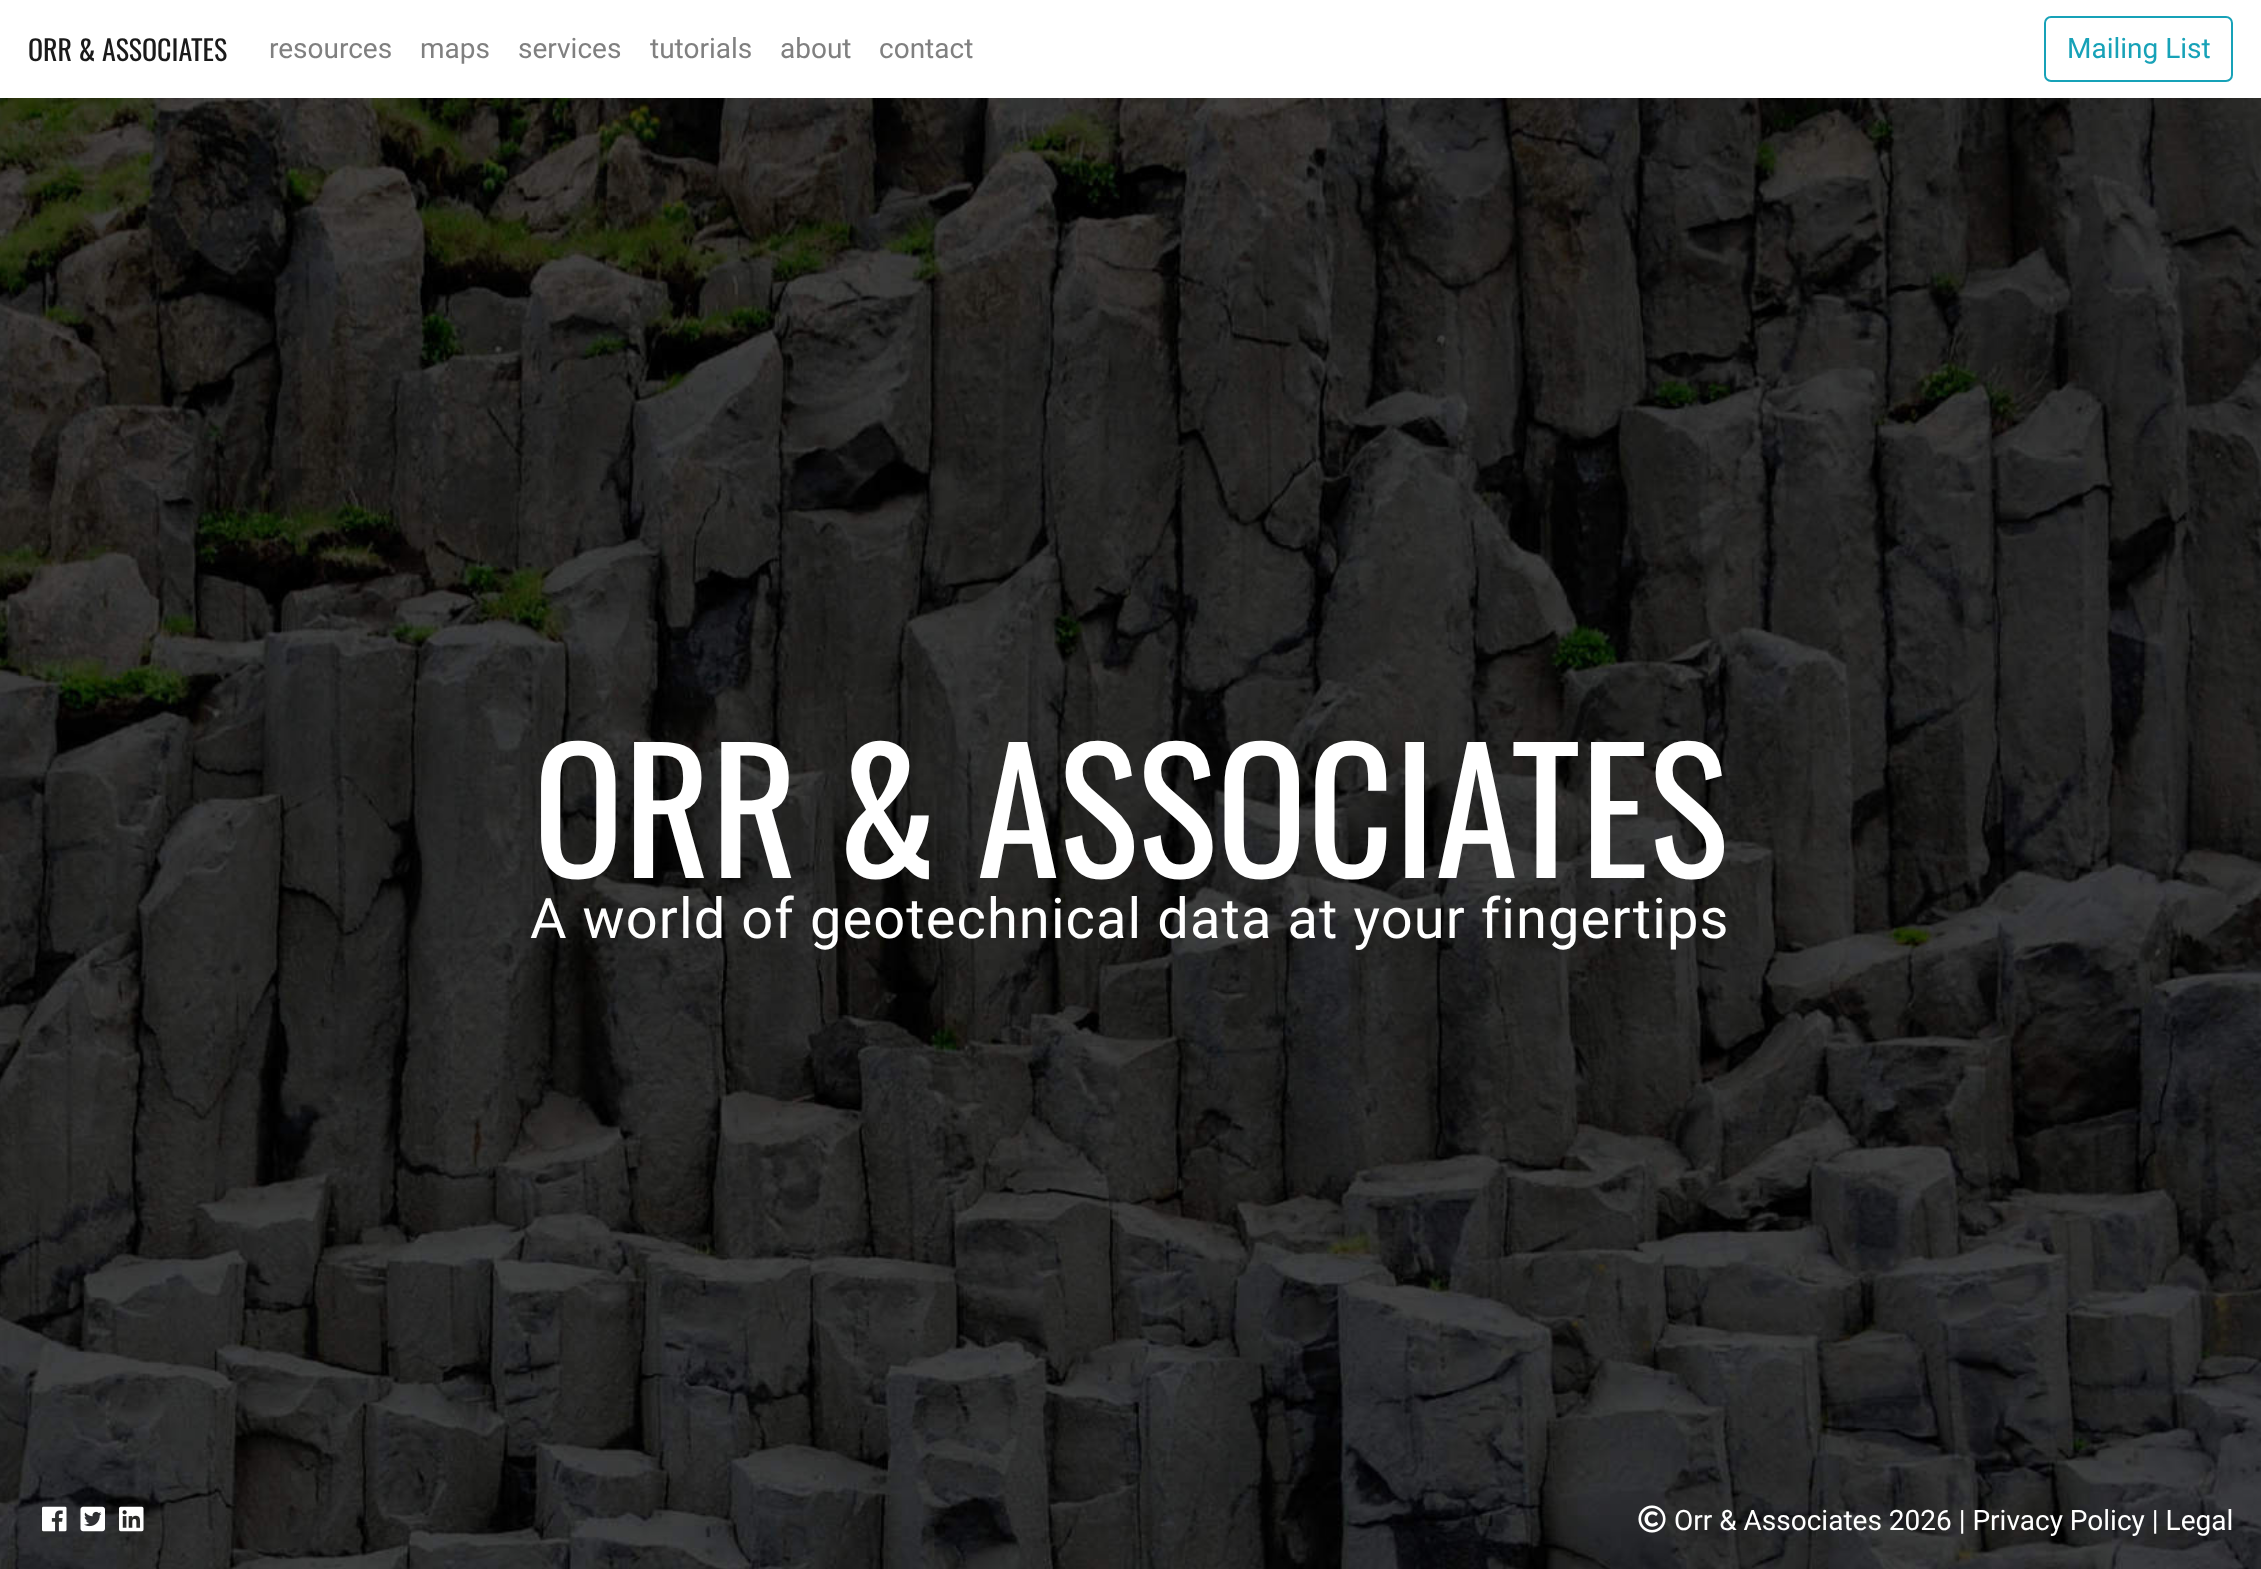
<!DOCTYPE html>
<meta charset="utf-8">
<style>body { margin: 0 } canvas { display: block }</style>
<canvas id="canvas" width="2261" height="1569"></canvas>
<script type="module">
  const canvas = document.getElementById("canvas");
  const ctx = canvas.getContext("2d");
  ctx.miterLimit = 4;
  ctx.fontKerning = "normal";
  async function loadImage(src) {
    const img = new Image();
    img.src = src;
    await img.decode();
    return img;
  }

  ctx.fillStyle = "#ffffff";
  ctx.fillRect(0, 0, 2261, 1569);
  ctx.font = "28px Oswald";
  ctx.fillStyle = "#1a1a1a";
  ctx.fillText("ORR & ASSOCIATES", 28, 61);
  ctx.font = "28px Roboto";
  ctx.fillStyle = "#808080";
  ctx.fillText("resources", 269, 58);
  ctx.fillText("maps", 420, 58);
  ctx.fillText("services", 518, 58);
  ctx.fillText("tutorials", 650, 58);
  ctx.fillText("about", 780, 58);
  ctx.fillText("contact", 879, 58);
  ctx.beginPath();
  ctx.roundRect(2045, 17, 187, 64, 6);
  ctx.strokeStyle = "#17a2b8";
  ctx.lineWidth = 2;
  ctx.stroke();
  ctx.fillStyle = "#17a2b8";
  ctx.fillText("Mailing List", 2067, 58);
  ctx.drawImage(await loadImage("img1.png"), 0, 98, 2261, 1471);
  ctx.font = "168px Oswald";
  ctx.fillStyle = "#ffffff";
  ctx.fillText("ORR & ASSOCIATES", 533, 878);
  ctx.letterSpacing = "1.1px";
  ctx.font = "56px Roboto";
  ctx.fillText("A world of geotechnical data at your fingertips", 530, 938);
  ctx.drawImage(await loadImage("img2.png"), 42, 1506, 25, 26);
  ctx.drawImage(await loadImage("img3.png"), 80, 1506, 25, 26);
  ctx.drawImage(await loadImage("img4.png"), 119, 1506, 25, 26);
  ctx.drawImage(await loadImage("img5.png"), 1638, 1505, 28, 28);
  ctx.letterSpacing = "0px";
  ctx.font = "28px Roboto";
  ctx.fillText("Orr & Associates 2026 | Privacy Policy | Legal", 1674, 1530);
</script>
